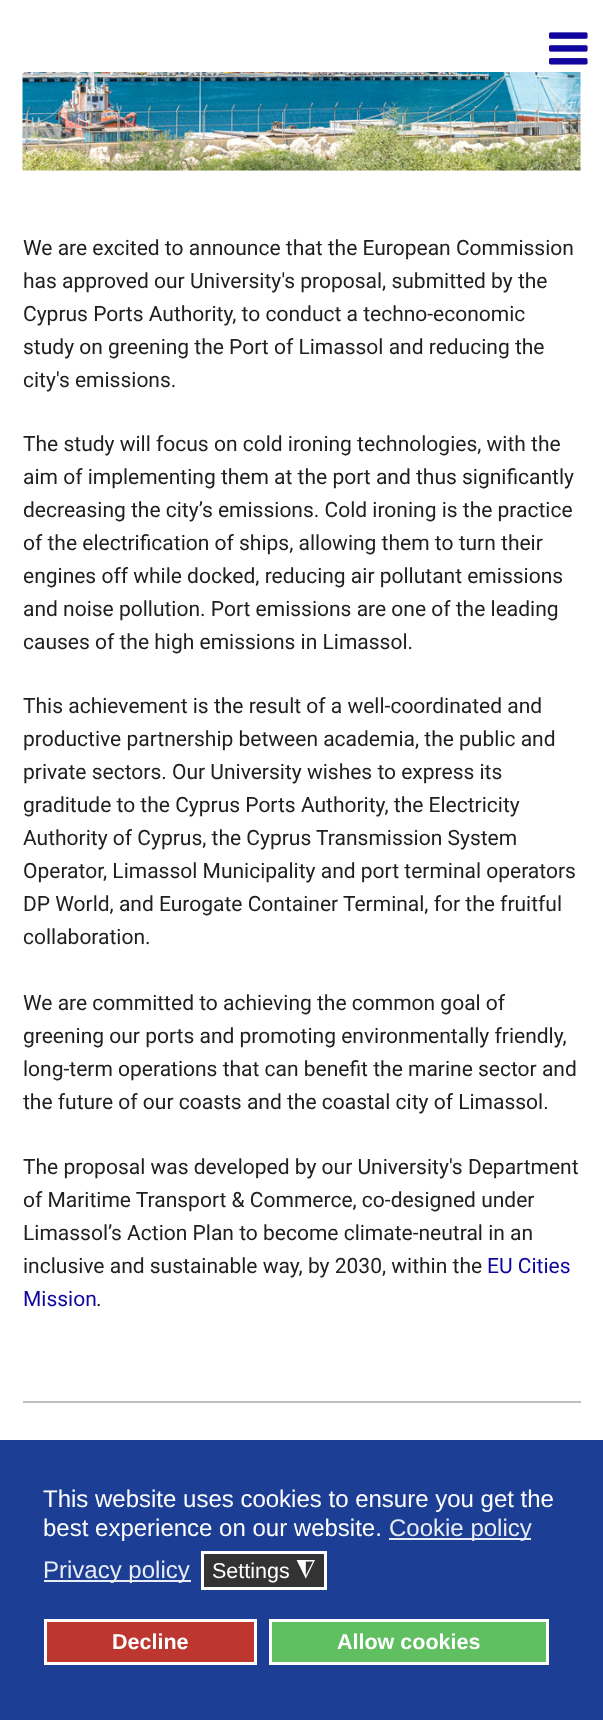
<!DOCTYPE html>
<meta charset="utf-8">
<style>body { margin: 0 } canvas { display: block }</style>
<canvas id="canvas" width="603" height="1720"></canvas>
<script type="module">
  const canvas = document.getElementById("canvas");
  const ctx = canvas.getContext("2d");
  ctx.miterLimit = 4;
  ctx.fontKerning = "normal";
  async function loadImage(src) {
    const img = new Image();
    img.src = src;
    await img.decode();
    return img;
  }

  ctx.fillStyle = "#ffffff";
  ctx.fillRect(0, 0, 603, 1720);
  ctx.drawImage(await loadImage("img1.png"), 549, 32, 39, 33);
  ctx.drawImage(await loadImage("img2.png"), 22, 72, 559, 99);
  ctx.font = "21px Roboto";
  ctx.fillStyle = "#202020";
  ctx.fillText("We are excited to announce that the European Commission", 23, 255);
  ctx.fillText("has approved our University's proposal, submitted by the", 23, 288);
  ctx.fillText("Cyprus Ports Authority, to conduct a techno-economic", 23, 321);
  ctx.fillText("study on greening the Port of Limassol and reducing the", 23, 354);
  ctx.fillText("city's emissions.", 23, 387);
  ctx.fillText("The study will focus on cold ironing technologies, with the", 23, 451);
  ctx.fillText("aim of implementing them at the port and thus significantly", 23, 484);
  ctx.fillText("decreasing the city’s emissions. Cold ironing is the practice", 23, 517);
  ctx.fillText("of the electrification of ships, allowing them to turn their", 23, 550);
  ctx.fillText("engines off while docked, reducing air pollutant emissions", 23, 583);
  ctx.fillText("and noise pollution. Port emissions are one of the leading", 23, 616);
  ctx.fillText("causes of the high emissions in Limassol.", 23, 649);
  ctx.fillText("This achievement is the result of a well-coordinated and", 23, 713);
  ctx.fillText("productive partnership between academia, the public and", 23, 746);
  ctx.fillText("private sectors. Our University wishes to express its", 23, 779);
  ctx.fillText("graditude to the Cyprus Ports Authority, the Electricity", 23, 812);
  ctx.fillText("Authority of Cyprus, the Cyprus Transmission System", 23, 845);
  ctx.fillText("Operator, Limassol Municipality and port terminal operators", 23, 878);
  ctx.fillText("DP World, and Eurogate Container Terminal, for the fruitful", 23, 911);
  ctx.fillText("collaboration.", 23, 944);
  ctx.fillText("We are committed to achieving the common goal of", 23, 1010);
  ctx.fillText("greening our ports and promoting environmentally friendly,", 23, 1043);
  ctx.fillText("long-term operations that can benefit the marine sector and", 23, 1076);
  ctx.fillText("the future of our coasts and the coastal city of Limassol.", 23, 1109);
  ctx.fillText("The proposal was developed by our University's Department", 23, 1174);
  ctx.fillText("of Maritime Transport & Commerce, co-designed under", 23, 1207);
  ctx.fillText("Limassol’s Action Plan to become climate-neutral in an", 23, 1240);
  ctx.fillText("inclusive and sustainable way, by 2030, within the", 23, 1273);
  ctx.fillStyle = "#10069f";
  ctx.fillText("EU Cities", 487, 1273);
  ctx.fillText("Mission", 23, 1306);
  ctx.fillStyle = "#202020";
  ctx.fillText(".", 96, 1306);
  ctx.fillStyle = "#babfc3";
  ctx.fillRect(23, 1401, 558, 2);
  ctx.fillStyle = "#1c3f95";
  ctx.fillRect(0, 1440, 603, 280);
  ctx.font = "24px Liberation Sans";
  ctx.fillStyle = "#ffffff";
  ctx.fillText("This website uses cookies to ensure you get the", 43, 1507);
  ctx.fillText("best experience on our website.", 43, 1536);
  ctx.fillStyle = "#e8ecf4";
  ctx.fillRect(389, 1538, 142, 2);
  ctx.fillText("Cookie policy", 389, 1536);
  ctx.fillRect(44, 1580, 147, 2);
  ctx.fillText("Privacy policy", 43, 1578);
  ctx.fillStyle = "#333333";
  ctx.beginPath();
  ctx.rect(202.5, 1552.5, 123, 36);
  ctx.fill();
  ctx.strokeStyle = "#ffffff";
  ctx.lineWidth = 3;
  ctx.stroke();
  ctx.font = "21.5px Liberation Sans";
  ctx.fillStyle = "#ffffff";
  ctx.fillText("Settings", 212, 1578);
  ctx.font = "24px DejaVu Sans";
  ctx.save();
  ctx.translate(315, 1563);
  ctx.rotate(180 * Math.PI / 180);
  ctx.fillText("◮", 0, 0);
  ctx.restore();
  ctx.fillStyle = "#bd362f";
  ctx.beginPath();
  ctx.rect(45.5, 1620.5, 210, 43);
  ctx.fill();
  ctx.stroke();
  ctx.font = "bold 21.5px Liberation Sans";
  ctx.fillStyle = "#ffffff";
  ctx.fillText("Decline", 112, 1649);
  ctx.fillStyle = "#60bf60";
  ctx.beginPath();
  ctx.rect(270.5, 1620.5, 277, 43);
  ctx.fill();
  ctx.stroke();
  ctx.fillStyle = "#ffffff";
  ctx.fillText("Allow cookies", 337, 1649);
</script>
